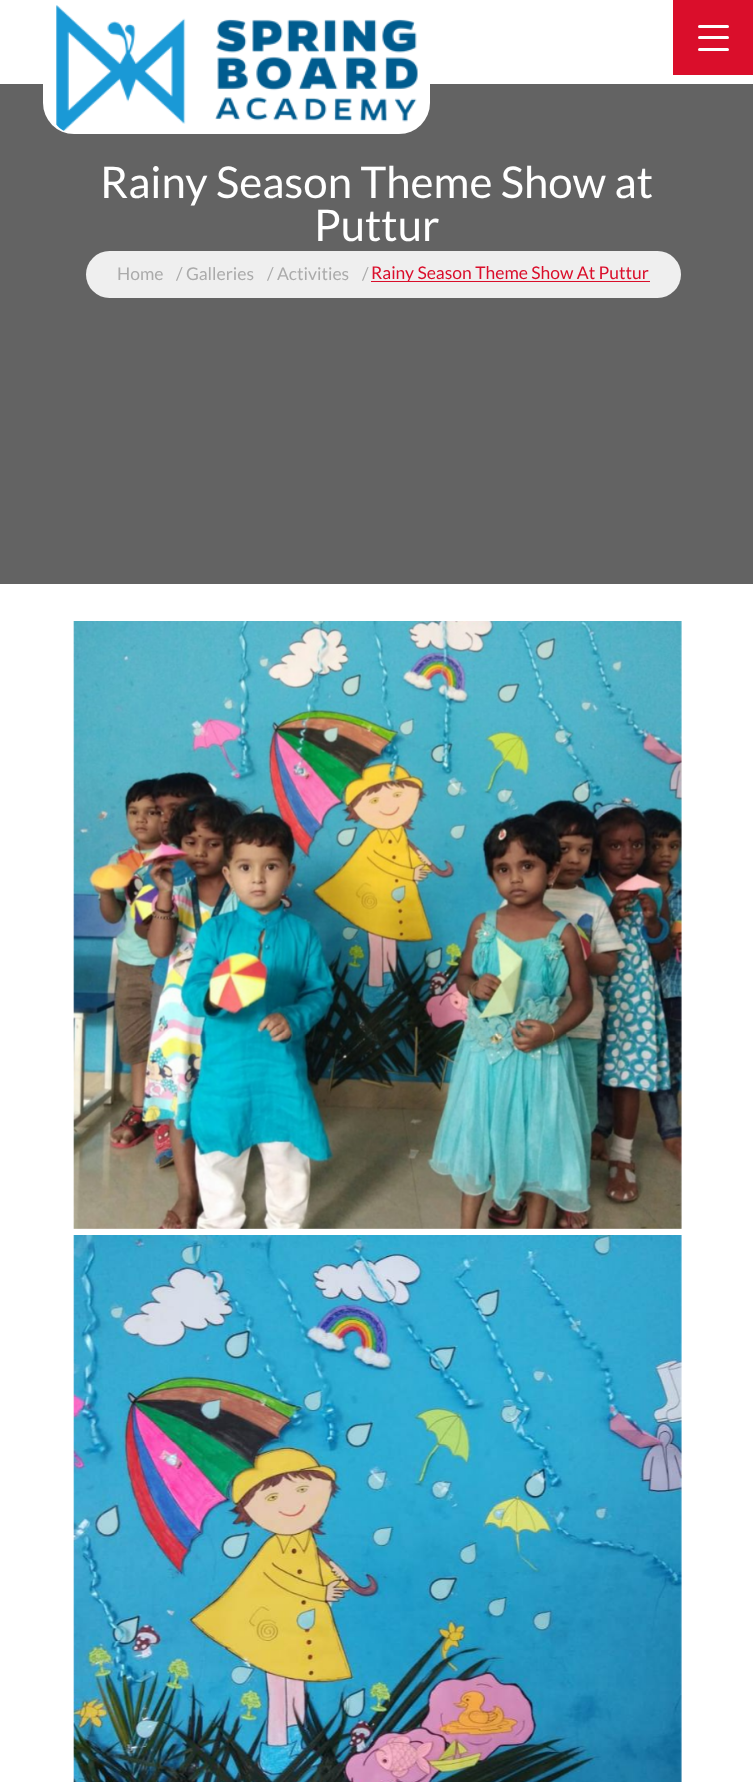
<!DOCTYPE html>
<meta charset="utf-8">
<style>body { margin: 0 } canvas { display: block }</style>
<canvas id="canvas" width="753" height="1782"></canvas>
<script type="module">
  const canvas = document.getElementById("canvas");
  const ctx = canvas.getContext("2d");
  ctx.miterLimit = 4;
  ctx.fontKerning = "normal";
  async function loadImage(src) {
    const img = new Image();
    img.src = src;
    await img.decode();
    return img;
  }

  ctx.fillStyle = "#ffffff";
  ctx.fillRect(0, 0, 753, 1782);
  ctx.fillStyle = "#636363";
  ctx.fillRect(0, 84, 753, 500);
  ctx.fillStyle = "#ffffff";
  ctx.beginPath();
  ctx.roundRect(43, 3, 387, 131, [0, 0, 31, 31]);
  ctx.fill();
  ctx.drawImage(await loadImage("img1.png"), 56, 5, 362, 126);
  ctx.fillStyle = "#da0e2b";
  ctx.fillRect(673, 0, 80, 75);
  ctx.fillStyle = "#ffffff";
  ctx.beginPath();
  ctx.roundRect(698, 25, 31, 3, 1.5);
  ctx.fill();
  ctx.beginPath();
  ctx.roundRect(698, 36, 31, 3, 1.5);
  ctx.fill();
  ctx.beginPath();
  ctx.roundRect(698, 48, 31, 3, 1.5);
  ctx.fill();
  ctx.font = "43.75px Lato";
  ctx.fillText("Rainy Season Theme Show at", 100, 198);
  ctx.fillText("Puttur", 314, 241);
  ctx.fillStyle = "#efefef";
  ctx.beginPath();
  ctx.roundRect(86, 251, 595, 47, 23.5);
  ctx.fill();
  ctx.font = "17.5px Lato";
  ctx.fillStyle = "#ababab";
  ctx.fillText("Home", 117, 280);
  ctx.fillText("/ Galleries", 176, 280);
  ctx.fillText("/ Activities", 267, 280);
  ctx.fillText("/", 362, 280);
  ctx.fillStyle = "#da0e2b";
  ctx.fillRect(371, 281, 279, 1);
  ctx.save();
  ctx.beginPath();
  ctx.rect(371, 264, 279, 17);
  ctx.clip();
  ctx.fillText("Rainy Season Theme Show At Puttur", 371, 279);
  ctx.restore();
  ctx.drawImage(await loadImage("img2.png"), 73, 621, 609, 608);
  ctx.drawImage(await loadImage("img3.png"), 73, 1235, 609, 547);
</script>
